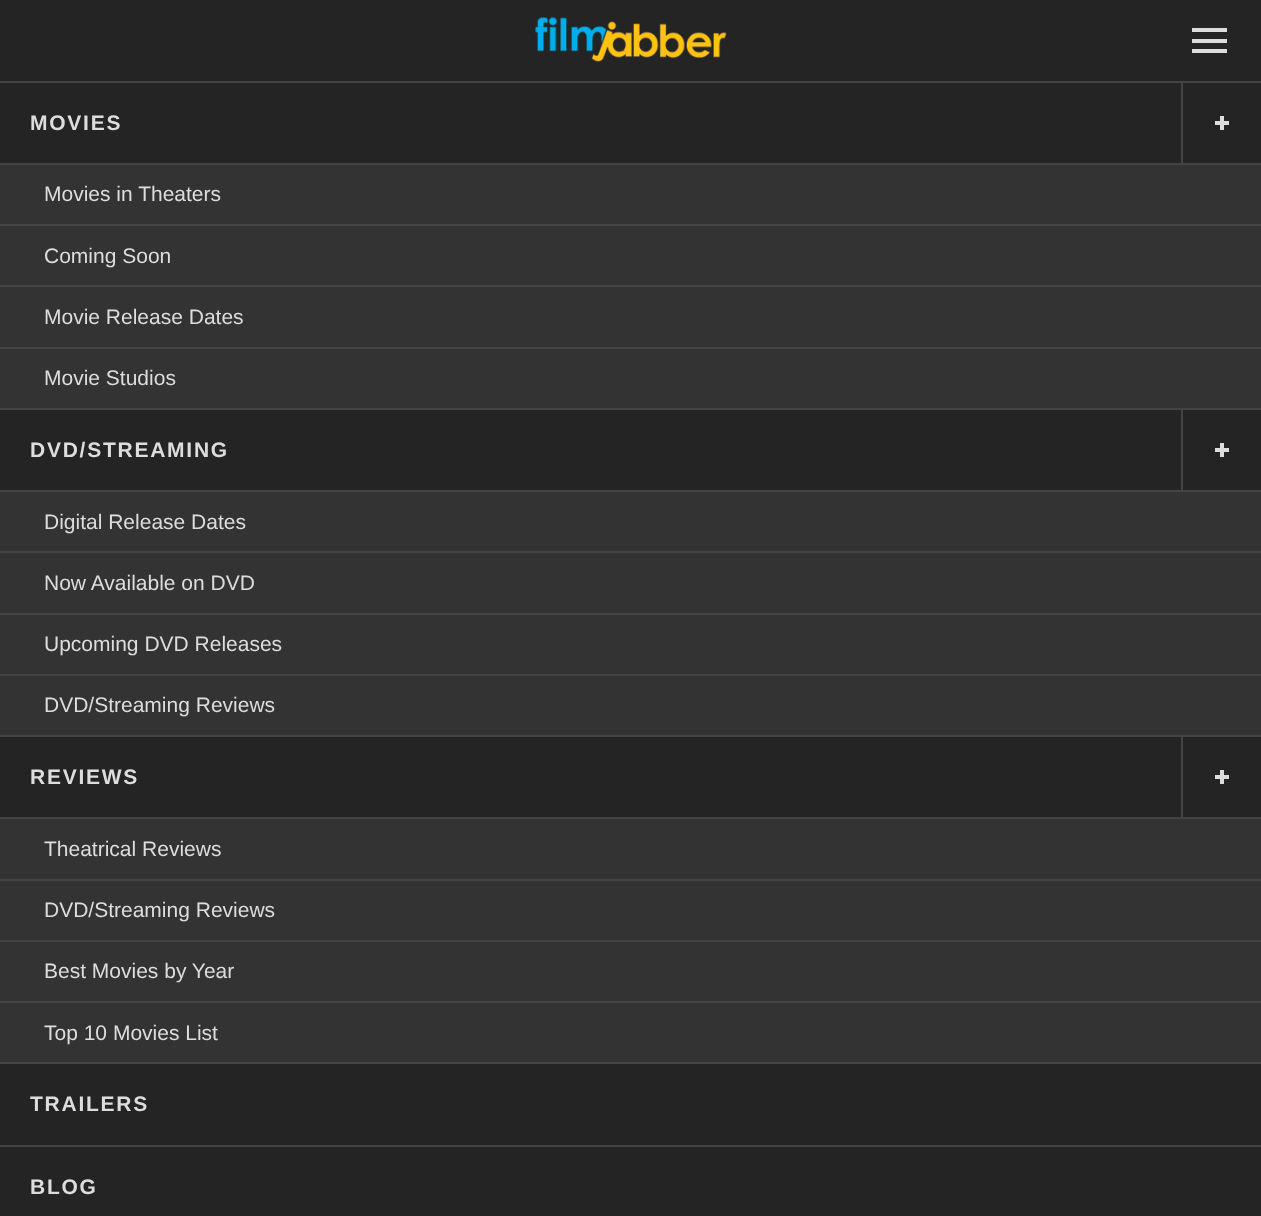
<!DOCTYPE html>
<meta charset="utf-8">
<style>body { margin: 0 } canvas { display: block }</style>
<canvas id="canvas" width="1261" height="1216"></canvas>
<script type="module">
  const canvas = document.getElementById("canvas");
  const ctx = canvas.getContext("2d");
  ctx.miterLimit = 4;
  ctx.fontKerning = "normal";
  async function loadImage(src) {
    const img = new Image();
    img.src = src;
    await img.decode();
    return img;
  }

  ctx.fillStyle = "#242424";
  ctx.fillRect(0, 0, 1261, 1216);
  ctx.drawImage(await loadImage("img1.png"), 535, 17, 192, 45);
  ctx.fillStyle = "#dddddd";
  ctx.fillRect(1192, 28, 35, 4);
  ctx.fillRect(1192, 39, 35, 4);
  ctx.fillRect(1192, 49, 35, 4);
  ctx.fillStyle = "#444444";
  ctx.fillRect(0, 81, 1261, 2);
  ctx.letterSpacing = "1.75px";
  ctx.font = "bold 21px Liberation Sans";
  ctx.fillStyle = "#dddddd";
  ctx.fillText("MOVIES", 30, 130);
  ctx.fillStyle = "#444444";
  ctx.fillRect(1181, 82, 2, 81);
  ctx.fillStyle = "#dddddd";
  ctx.fillRect(1220, 116, 4, 14);
  ctx.fillRect(1215, 121, 14, 4);
  ctx.fillStyle = "#333333";
  ctx.fillRect(0, 165, 1261, 59);
  ctx.fillStyle = "#444444";
  ctx.fillRect(0, 163, 1261, 2);
  ctx.letterSpacing = "0px";
  ctx.font = "21px Liberation Sans";
  ctx.fillStyle = "#dddddd";
  ctx.fillText("Movies in Theaters", 44, 201);
  ctx.fillStyle = "#333333";
  ctx.fillRect(0, 226, 1261, 59);
  ctx.fillStyle = "#444444";
  ctx.fillRect(0, 224, 1261, 2);
  ctx.fillStyle = "#dddddd";
  ctx.fillText("Coming Soon", 44, 263);
  ctx.fillStyle = "#333333";
  ctx.fillRect(0, 287, 1261, 60);
  ctx.fillStyle = "#444444";
  ctx.fillRect(0, 285, 1261, 2);
  ctx.fillStyle = "#dddddd";
  ctx.fillText("Movie Release Dates", 44, 324);
  ctx.fillStyle = "#333333";
  ctx.fillRect(0, 349, 1261, 59);
  ctx.fillStyle = "#444444";
  ctx.fillRect(0, 347, 1261, 2);
  ctx.fillStyle = "#dddddd";
  ctx.fillText("Movie Studios", 44, 385);
  ctx.fillStyle = "#444444";
  ctx.fillRect(0, 408, 1261, 2);
  ctx.letterSpacing = "1.75px";
  ctx.font = "bold 21px Liberation Sans";
  ctx.fillStyle = "#dddddd";
  ctx.fillText("DVD/STREAMING", 30, 457);
  ctx.fillStyle = "#444444";
  ctx.fillRect(1181, 410, 2, 80);
  ctx.fillStyle = "#dddddd";
  ctx.fillRect(1220, 443, 4, 14);
  ctx.fillRect(1215, 448, 14, 4);
  ctx.fillStyle = "#333333";
  ctx.fillRect(0, 492, 1261, 59);
  ctx.fillStyle = "#444444";
  ctx.fillRect(0, 490, 1261, 2);
  ctx.letterSpacing = "0px";
  ctx.font = "21px Liberation Sans";
  ctx.fillStyle = "#dddddd";
  ctx.fillText("Digital Release Dates", 44, 529);
  ctx.fillStyle = "#333333";
  ctx.fillRect(0, 553, 1261, 60);
  ctx.fillStyle = "#444444";
  ctx.fillRect(0, 551, 1261, 2);
  ctx.fillStyle = "#dddddd";
  ctx.fillText("Now Available on DVD", 44, 590);
  ctx.fillStyle = "#333333";
  ctx.fillRect(0, 615, 1261, 59);
  ctx.fillStyle = "#444444";
  ctx.fillRect(0, 613, 1261, 2);
  ctx.fillStyle = "#dddddd";
  ctx.fillText("Upcoming DVD Releases", 44, 651);
  ctx.fillStyle = "#333333";
  ctx.fillRect(0, 676, 1261, 59);
  ctx.fillStyle = "#444444";
  ctx.fillRect(0, 674, 1261, 2);
  ctx.fillStyle = "#dddddd";
  ctx.fillText("DVD/Streaming Reviews", 44, 712);
  ctx.fillStyle = "#444444";
  ctx.fillRect(0, 735, 1261, 2);
  ctx.letterSpacing = "1.75px";
  ctx.font = "bold 21px Liberation Sans";
  ctx.fillStyle = "#dddddd";
  ctx.fillText("REVIEWS", 30, 784);
  ctx.fillStyle = "#444444";
  ctx.fillRect(1181, 737, 2, 80);
  ctx.fillStyle = "#dddddd";
  ctx.fillRect(1220, 770, 4, 14);
  ctx.fillRect(1215, 775, 14, 4);
  ctx.fillStyle = "#333333";
  ctx.fillRect(0, 819, 1261, 60);
  ctx.fillStyle = "#444444";
  ctx.fillRect(0, 817, 1261, 2);
  ctx.letterSpacing = "0px";
  ctx.font = "21px Liberation Sans";
  ctx.fillStyle = "#dddddd";
  ctx.fillText("Theatrical Reviews", 44, 856);
  ctx.fillStyle = "#333333";
  ctx.fillRect(0, 881, 1261, 59);
  ctx.fillStyle = "#444444";
  ctx.fillRect(0, 879, 1261, 2);
  ctx.fillStyle = "#dddddd";
  ctx.fillText("DVD/Streaming Reviews", 44, 917);
  ctx.fillStyle = "#333333";
  ctx.fillRect(0, 942, 1261, 59);
  ctx.fillStyle = "#444444";
  ctx.fillRect(0, 940, 1261, 2);
  ctx.fillStyle = "#dddddd";
  ctx.fillText("Best Movies by Year", 44, 978);
  ctx.fillStyle = "#333333";
  ctx.fillRect(0, 1003, 1261, 59);
  ctx.fillStyle = "#444444";
  ctx.fillRect(0, 1001, 1261, 2);
  ctx.fillStyle = "#dddddd";
  ctx.fillText("Top 10 Movies List", 44, 1040);
  ctx.fillStyle = "#444444";
  ctx.fillRect(0, 1062, 1261, 2);
  ctx.letterSpacing = "1.75px";
  ctx.font = "bold 21px Liberation Sans";
  ctx.fillStyle = "#dddddd";
  ctx.fillText("TRAILERS", 30, 1111);
  ctx.fillStyle = "#444444";
  ctx.fillRect(0, 1145, 1261, 2);
  ctx.fillStyle = "#dddddd";
  ctx.fillText("BLOG", 30, 1194);
</script>
